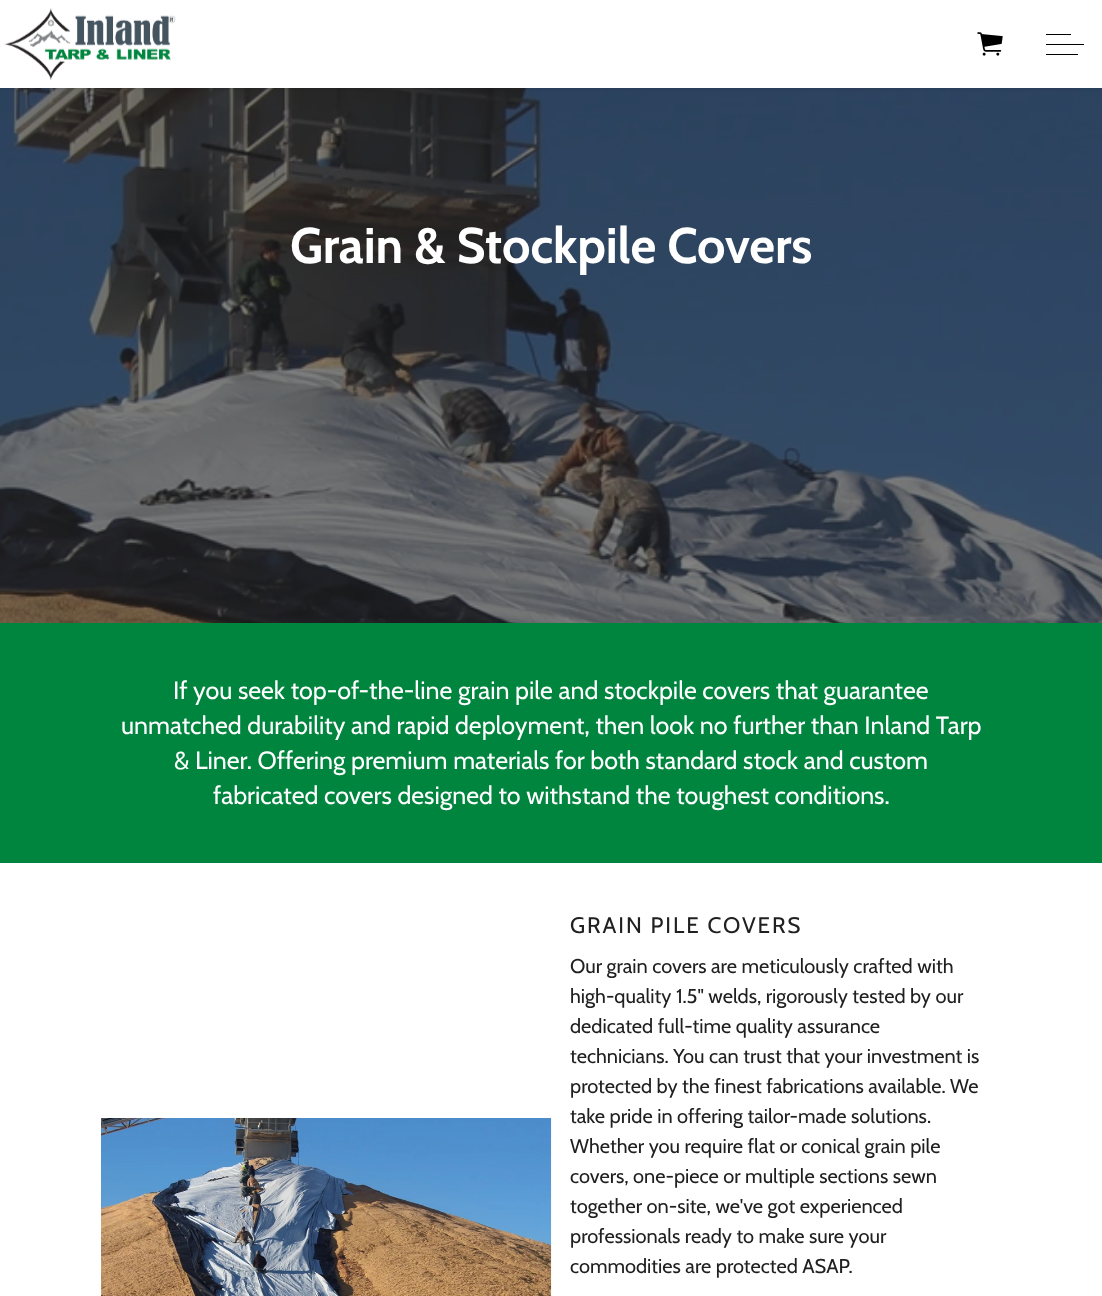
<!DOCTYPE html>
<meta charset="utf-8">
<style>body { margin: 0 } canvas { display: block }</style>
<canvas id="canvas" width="1102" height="1296"></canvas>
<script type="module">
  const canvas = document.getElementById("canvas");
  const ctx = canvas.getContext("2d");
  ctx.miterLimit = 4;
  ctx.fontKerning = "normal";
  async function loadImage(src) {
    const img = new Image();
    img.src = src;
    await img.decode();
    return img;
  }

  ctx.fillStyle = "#ffffff";
  ctx.fillRect(0, 0, 1102, 1296);
  ctx.drawImage(await loadImage("img3.png"), 0, 88, 1102, 535);
  ctx.fillStyle = "rgba(0, 0, 0, 0.05)";
  ctx.filter = "blur(1px)";
  ctx.beginPath();
  ctx.rect(0, 3, 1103, 87);
  ctx.fill();
  ctx.filter = "none";
  ctx.fillStyle = "#ffffff";
  ctx.fillRect(0, 2, 1102, 86);
  ctx.drawImage(await loadImage("img1.png"), 4, 8, 172, 72);
  ctx.drawImage(await loadImage("img2.png"), 977, 32, 26, 24);
  ctx.fillStyle = "#000000";
  ctx.fillRect(1046, 44, 38, 1);
  ctx.fillRect(1046, 34, 25, 1);
  ctx.fillRect(1046, 54, 32, 1);
  ctx.letterSpacing = "-0.1px";
  ctx.font = "bold 50px Cabin";
  ctx.fillStyle = "#ffffff";
  ctx.fillText("Grain & Stockpile Covers", 290, 263);
  ctx.fillStyle = "#00853f";
  ctx.fillRect(0, 623, 1102, 240);
  ctx.letterSpacing = "0px";
  ctx.font = "25px Cabin";
  ctx.fillStyle = "#ffffff";
  ctx.fillText("If you seek top-of-the-line grain pile and stockpile covers that guarantee", 173, 699);
  ctx.fillText("unmatched durability and rapid deployment, then look no further than Inland Tarp", 121, 734);
  ctx.fillText("& Liner. Offering premium materials for both standard stock and custom", 174, 769);
  ctx.fillText("fabricated covers designed to withstand the toughest conditions.", 213, 804);
  ctx.drawImage(await loadImage("img4.png"), 101, 1118, 451, 178);
  ctx.letterSpacing = "1.9px";
  ctx.font = "22.5px Cabin";
  ctx.fillStyle = "#202020";
  ctx.fillText("GRAIN PILE COVERS", 570, 933);
  ctx.letterSpacing = "0px";
  ctx.font = "20px Cabin";
  ctx.fillText("Our grain covers are meticulously crafted with", 570, 973);
  ctx.fillText("high-quality 1.5\" welds, rigorously tested by our", 570, 1003);
  ctx.fillText("dedicated full-time quality assurance", 570, 1033);
  ctx.fillText("technicians. You can trust that your investment is", 570, 1063);
  ctx.fillText("protected by the finest fabrications available. We", 570, 1093);
  ctx.fillText("take pride in offering tailor-made solutions.", 570, 1123);
  ctx.fillText("Whether you require flat or conical grain pile", 570, 1153);
  ctx.fillText("covers, one-piece or multiple sections sewn", 570, 1183);
  ctx.fillText("together on-site, we've got experienced", 570, 1213);
  ctx.fillText("professionals ready to make sure your", 570, 1243);
  ctx.fillText("commodities are protected ASAP.", 570, 1273);
</script>
